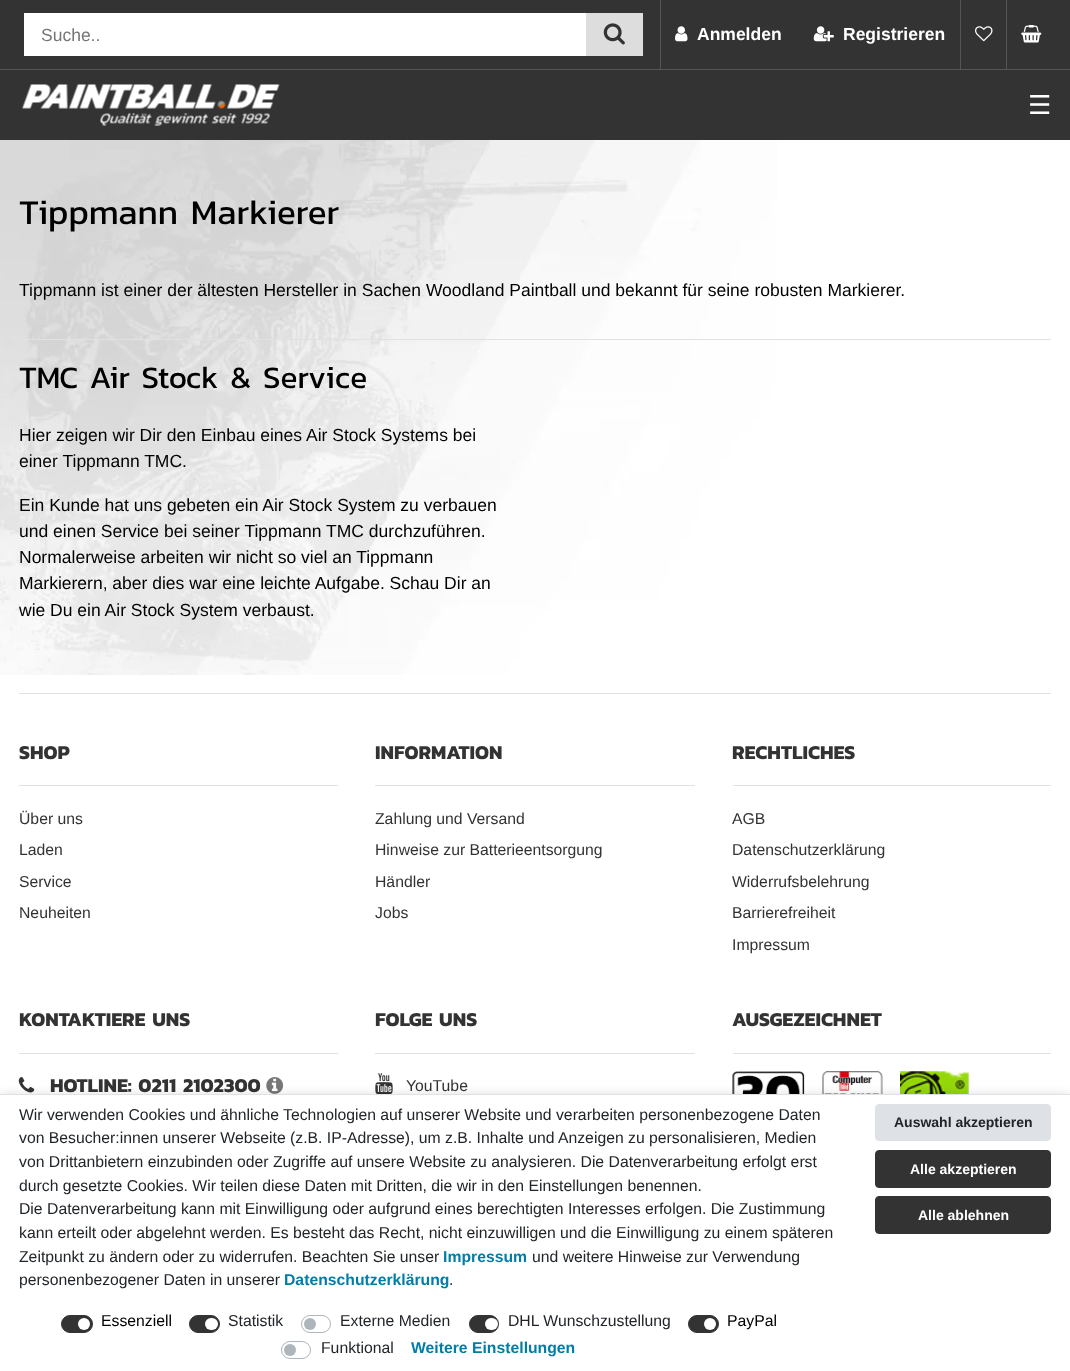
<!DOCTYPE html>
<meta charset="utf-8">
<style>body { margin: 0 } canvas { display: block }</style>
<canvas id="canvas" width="1070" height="1371"></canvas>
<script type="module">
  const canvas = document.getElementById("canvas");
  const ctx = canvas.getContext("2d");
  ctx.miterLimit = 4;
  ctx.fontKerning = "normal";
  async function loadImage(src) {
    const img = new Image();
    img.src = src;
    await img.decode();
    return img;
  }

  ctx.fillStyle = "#ffffff";
  ctx.fillRect(0, 0, 1070, 1371);
  ctx.drawImage(await loadImage("img1.png"), 0, 140, 777, 535);
  ctx.fillStyle = "#333333";
  ctx.fillRect(0, 0, 1070, 69);
  ctx.fillStyle = "#555555";
  ctx.fillRect(0, 69, 1070, 1);
  ctx.fillStyle = "#ffffff";
  ctx.fillRect(24, 13, 562, 43);
  ctx.font = "17.5px Liberation Sans";
  ctx.fillStyle = "#757575";
  ctx.fillText("Suche..", 41, 41);
  ctx.fillStyle = "#dddddd";
  ctx.fillRect(586, 13, 57, 43);
  ctx.drawImage(await loadImage("img2.png"), 603, 23, 22, 22);
  ctx.fillStyle = "#555555";
  ctx.fillRect(660, 0, 1, 69);
  ctx.drawImage(await loadImage("img3.png"), 675, 26, 13, 16);
  ctx.font = "bold 17.5px Liberation Sans";
  ctx.fillStyle = "#ffffff";
  ctx.fillText("Anmelden", 697, 40);
  ctx.drawImage(await loadImage("img4.png"), 813, 26, 21, 16);
  ctx.fillText("Registrieren", 843, 40);
  ctx.fillStyle = "#555555";
  ctx.fillRect(960, 0, 1, 69);
  ctx.drawImage(await loadImage("img5.png"), 975, 26, 18, 16);
  ctx.fillRect(1006, 0, 1, 69);
  ctx.drawImage(await loadImage("img6.png"), 1021, 25, 21, 18);
  ctx.fillStyle = "#333333";
  ctx.fillRect(0, 70, 1070, 70);
  ctx.drawImage(await loadImage("img7.png"), 22, 84, 258, 42);
  ctx.font = "26px DejaVu Sans";
  ctx.fillStyle = "#ffffff";
  ctx.fillText("☰", 1028, 114);
  ctx.font = "35px Kanit";
  ctx.fillStyle = "#000000";
  ctx.fillText("Tippmann Markierer", 19, 224);
  ctx.font = "17.5px Liberation Sans";
  ctx.fillText("Tippmann ist einer der ältesten Hersteller in Sachen Woodland Paintball und bekannt für seine robusten Markierer.", 19, 296);
  ctx.fillStyle = "#dee2e6";
  ctx.fillRect(19, 339, 1032, 1);
  ctx.font = "31.5px Kanit";
  ctx.fillStyle = "#000000";
  ctx.fillText("TMC Air Stock & Service", 19, 388);
  ctx.font = "17.5px Liberation Sans";
  ctx.fillText("Hier zeigen wir Dir den Einbau eines Air Stock Systems bei", 19, 441);
  ctx.fillText("einer Tippmann TMC.", 19, 467);
  ctx.fillText("Ein Kunde hat uns gebeten ein Air Stock System zu verbauen", 19, 511);
  ctx.fillText("und einen Service bei seiner Tippmann TMC durchzuführen.", 19, 537);
  ctx.fillText("Normalerweise arbeiten wir nicht so viel an Tippmann", 19, 563);
  ctx.fillText("Markierern, aber dies war eine leichte Aufgabe. Schau Dir an", 19, 589);
  ctx.fillText("wie Du ein Air Stock System verbaust.", 19, 616);
  ctx.fillStyle = "#dee2e6";
  ctx.fillRect(19, 693, 1032, 1);
  ctx.font = "bold 19.75px Kanit";
  ctx.fillStyle = "#333333";
  ctx.fillText("SHOP", 19, 759);
  ctx.fillStyle = "#dee2e6";
  ctx.fillRect(19, 785, 319, 1);
  ctx.font = "15.75px Liberation Sans";
  ctx.fillStyle = "#333333";
  ctx.fillText("Über uns", 19, 824);
  ctx.fillText("Laden", 19, 855);
  ctx.fillText("Service", 19, 887);
  ctx.fillText("Neuheiten", 19, 918);
  ctx.font = "bold 19.75px Kanit";
  ctx.fillText("INFORMATION", 375, 759);
  ctx.fillStyle = "#dee2e6";
  ctx.fillRect(375, 785, 320, 1);
  ctx.font = "15.75px Liberation Sans";
  ctx.fillStyle = "#333333";
  ctx.fillText("Zahlung und Versand", 375, 824);
  ctx.fillText("Hinweise zur Batterieentsorgung", 375, 855);
  ctx.fillText("Händler", 375, 887);
  ctx.fillText("Jobs", 375, 918);
  ctx.font = "bold 19.75px Kanit";
  ctx.fillText("RECHTLICHES", 732, 759);
  ctx.fillStyle = "#dee2e6";
  ctx.fillRect(733, 785, 318, 1);
  ctx.font = "15.75px Liberation Sans";
  ctx.fillStyle = "#333333";
  ctx.fillText("AGB", 732, 824);
  ctx.fillText("Datenschutzerklärung", 732, 855);
  ctx.fillText("Widerrufsbelehrung", 732, 887);
  ctx.fillText("Barrierefreiheit", 732, 918);
  ctx.fillText("Impressum", 732, 950);
  ctx.font = "bold 19.75px Kanit";
  ctx.fillText("KONTAKTIERE UNS", 19, 1026);
  ctx.fillStyle = "#dee2e6";
  ctx.fillRect(19, 1053, 319, 1);
  ctx.drawImage(await loadImage("img8.png"), 18, 1077, 17, 16);
  ctx.fillStyle = "#333333";
  ctx.fillText("HOTLINE: 0211 2102300", 50, 1092);
  ctx.drawImage(await loadImage("img9.png"), 266, 1077, 18, 17);
  ctx.fillText("FOLGE UNS", 375, 1026);
  ctx.fillStyle = "#dee2e6";
  ctx.fillRect(375, 1053, 320, 1);
  ctx.drawImage(await loadImage("img10.png"), 375, 1073, 18, 21);
  ctx.font = "15.75px Liberation Sans";
  ctx.fillStyle = "#333333";
  ctx.fillText("YouTube", 406, 1091);
  ctx.font = "bold 19.75px Kanit";
  ctx.fillText("AUSGEZEICHNET", 732, 1026);
  ctx.fillStyle = "#dee2e6";
  ctx.fillRect(733, 1053, 318, 1);
  ctx.drawImage(await loadImage("img11.png"), 732, 1071, 73, 23);
  ctx.drawImage(await loadImage("img12.png"), 822, 1071, 61, 23);
  ctx.drawImage(await loadImage("img13.png"), 900, 1071, 69, 23);
  ctx.fillStyle = "rgba(0, 0, 0, 0.1)";
  ctx.filter = "blur(4px)";
  ctx.beginPath();
  ctx.rect(0, 1093, 1070, 277);
  ctx.fill();
  ctx.filter = "none";
  ctx.fillStyle = "#ffffff";
  ctx.fillRect(0, 1095, 1070, 276);
  ctx.fillStyle = "#dee2e6";
  ctx.fillRect(0, 1094, 1070, 1);
  ctx.font = "15.75px Liberation Sans";
  ctx.fillStyle = "#212529";
  ctx.fillText("Wir verwenden Cookies und ähnliche Technologien auf unserer Website und verarbeiten personenbezogene Daten", 19, 1120);
  ctx.fillText("von Besucher:innen unserer Webseite (z.B. IP-Adresse), um z.B. Inhalte und Anzeigen zu personalisieren, Medien", 19, 1143);
  ctx.fillText("von Drittanbietern einzubinden oder Zugriffe auf unsere Website zu analysieren. Die Datenverarbeitung erfolgt erst", 19, 1167);
  ctx.fillText("durch gesetzte Cookies. Wir teilen diese Daten mit Dritten, die wir in den Einstellungen benennen.", 19, 1191);
  ctx.fillText("Die Datenverarbeitung kann mit Einwilligung oder aufgrund eines berechtigten Interesses erfolgen. Die Zustimmung", 19, 1214);
  ctx.fillText("kann erteilt oder abgelehnt werden. Es besteht das Recht, nicht einzuwilligen und die Einwilligung zu einem späteren", 19, 1238);
  ctx.fillText("Zeitpunkt zu ändern oder zu widerrufen. Beachten Sie unser", 19, 1262);
  ctx.font = "bold 15.75px Liberation Sans";
  ctx.fillStyle = "#007ea8";
  ctx.fillText("Impressum", 443, 1262);
  ctx.font = "15.75px Liberation Sans";
  ctx.fillStyle = "#212529";
  ctx.fillText("und weitere Hinweise zur Verwendung", 532, 1262);
  ctx.fillText("personenbezogener Daten in unserer", 19, 1285);
  ctx.font = "bold 15.75px Liberation Sans";
  ctx.fillStyle = "#007ea8";
  ctx.fillText("Datenschutzerklärung", 284, 1285);
  ctx.font = "15.75px Liberation Sans";
  ctx.fillStyle = "#212529";
  ctx.fillText(".", 449, 1285);
  ctx.fillStyle = "#333333";
  ctx.beginPath();
  ctx.roundRect(61.5, 1315.5, 31, 17, 8.5);
  ctx.fill();
  ctx.strokeStyle = "#333333";
  ctx.stroke();
  ctx.fillStyle = "#000000";
  ctx.fillText("Essenziell", 101, 1326);
  ctx.fillStyle = "#ffffff";
  ctx.beginPath();
  ctx.arc(84, 1324, 6, 0, Math.PI * 2);
  ctx.fill();
  ctx.fillStyle = "#333333";
  ctx.beginPath();
  ctx.roundRect(189.5, 1315.5, 30, 17, 8.5);
  ctx.fill();
  ctx.stroke();
  ctx.fillStyle = "#212529";
  ctx.fillText("Statistik", 228, 1326);
  ctx.fillStyle = "#ffffff";
  ctx.beginPath();
  ctx.roundRect(205, 1318, 13, 12, 6);
  ctx.fill();
  ctx.beginPath();
  ctx.roundRect(301.5, 1315.5, 29, 17, 8.5);
  ctx.strokeStyle = "#adb5bd";
  ctx.stroke();
  ctx.fillStyle = "#212529";
  ctx.fillText("Externe Medien", 340, 1326);
  ctx.fillStyle = "#adb5bd";
  ctx.beginPath();
  ctx.arc(310, 1324, 6, 0, Math.PI * 2);
  ctx.fill();
  ctx.fillStyle = "#333333";
  ctx.beginPath();
  ctx.roundRect(469.5, 1315.5, 29, 17, 8.5);
  ctx.fill();
  ctx.strokeStyle = "#333333";
  ctx.stroke();
  ctx.fillStyle = "#212529";
  ctx.fillText("DHL Wunschzustellung", 508, 1326);
  ctx.fillStyle = "#ffffff";
  ctx.beginPath();
  ctx.roundRect(485, 1318, 13, 12, 6);
  ctx.fill();
  ctx.fillStyle = "#333333";
  ctx.beginPath();
  ctx.roundRect(688.5, 1315.5, 30, 17, 8.5);
  ctx.fill();
  ctx.stroke();
  ctx.fillStyle = "#000000";
  ctx.fillText("PayPal", 727, 1326);
  ctx.fillStyle = "#ffffff";
  ctx.beginPath();
  ctx.arc(710, 1324, 6, 0, Math.PI * 2);
  ctx.fill();
  ctx.beginPath();
  ctx.roundRect(281.5, 1341.5, 29, 17, 8.5);
  ctx.strokeStyle = "#adb5bd";
  ctx.stroke();
  ctx.fillStyle = "#212529";
  ctx.fillText("Funktional", 321, 1353);
  ctx.fillStyle = "#adb5bd";
  ctx.beginPath();
  ctx.arc(290, 1350, 6, 0, Math.PI * 2);
  ctx.fill();
  ctx.font = "bold 15.75px Liberation Sans";
  ctx.fillStyle = "#007ea8";
  ctx.fillText("Weitere Einstellungen", 411, 1353);
  ctx.fillStyle = "#dee2e6";
  ctx.beginPath();
  ctx.roundRect(875.5, 1104.5, 175, 36, 3.5);
  ctx.fill();
  ctx.strokeStyle = "#dee2e6";
  ctx.stroke();
  ctx.font = "bold 14px Liberation Sans";
  ctx.fillStyle = "#212529";
  ctx.fillText("Auswahl akzeptieren", 894, 1127);
  ctx.fillStyle = "#333333";
  ctx.beginPath();
  ctx.roundRect(875.5, 1150.5, 175, 37, 3.5);
  ctx.fill();
  ctx.strokeStyle = "#333333";
  ctx.stroke();
  ctx.fillStyle = "#ffffff";
  ctx.fillText("Alle akzeptieren", 910, 1174);
  ctx.fillStyle = "#333333";
  ctx.beginPath();
  ctx.roundRect(875.5, 1196.5, 175, 37, 3.5);
  ctx.fill();
  ctx.stroke();
  ctx.fillStyle = "#ffffff";
  ctx.fillText("Alle ablehnen", 918, 1220);
</script>
